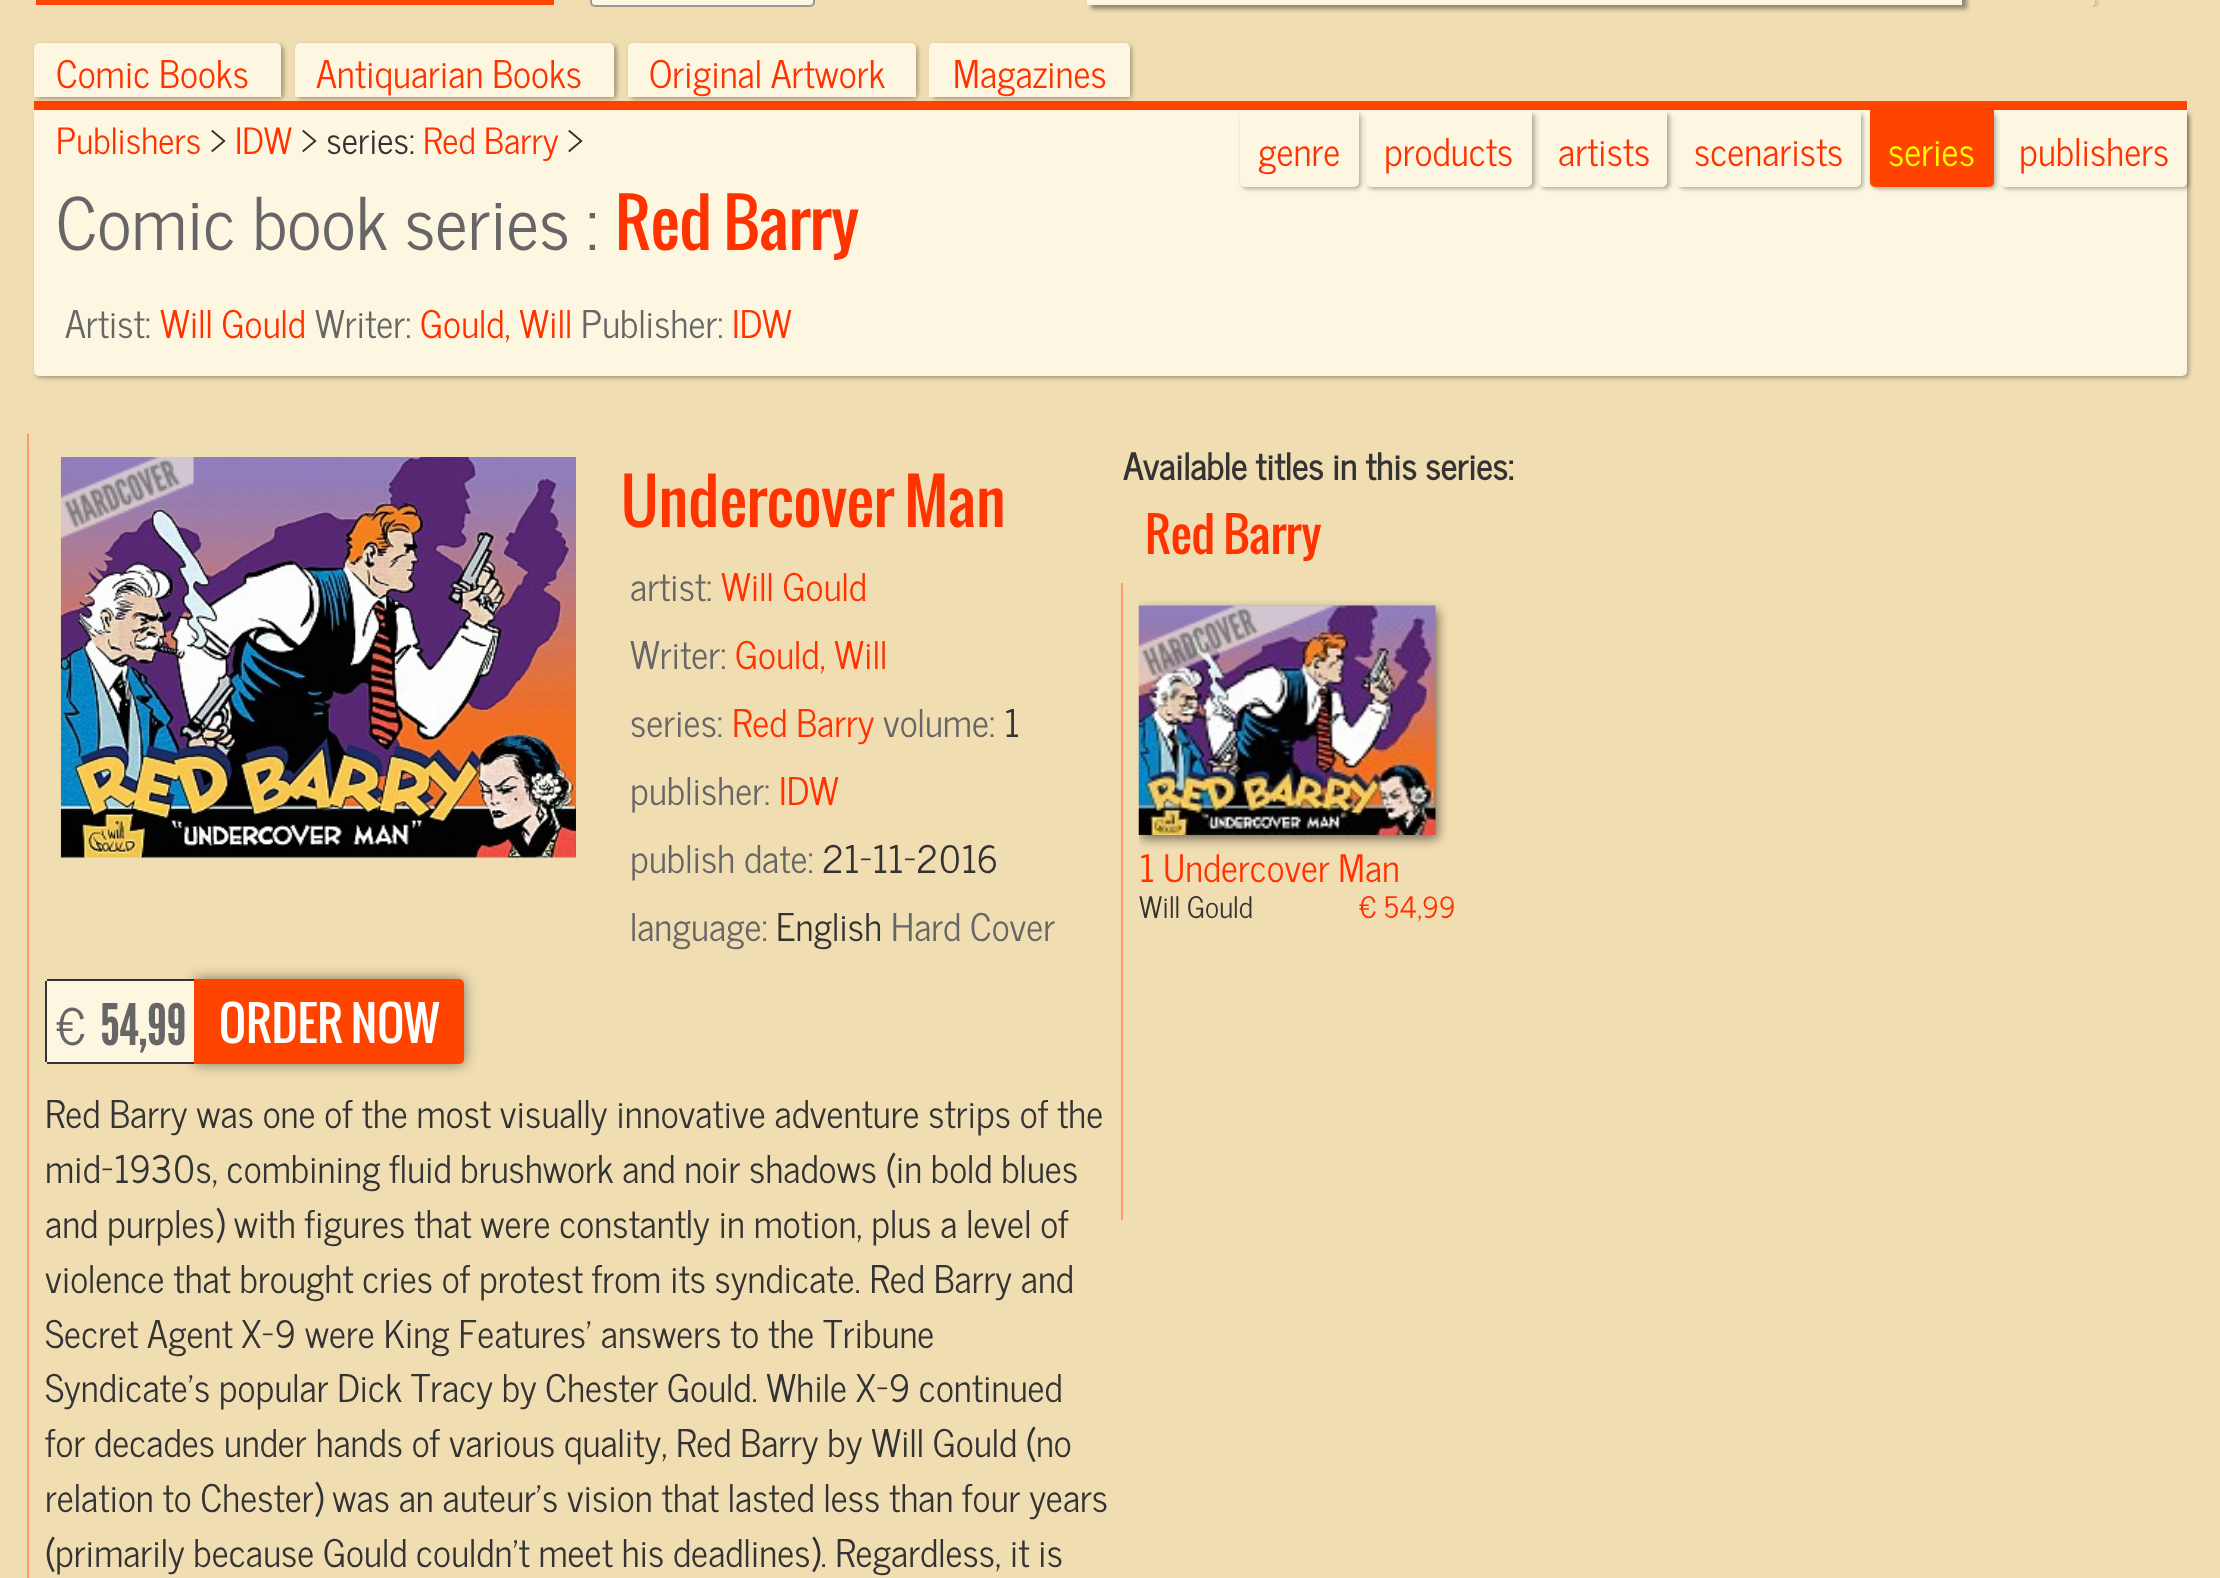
<!DOCTYPE html>
<meta charset="utf-8">
<style>body { margin: 0 } canvas { display: block }</style>
<canvas id="canvas" width="2220" height="1578"></canvas>
<script type="module">
  const canvas = document.getElementById("canvas");
  const ctx = canvas.getContext("2d");
  ctx.miterLimit = 4;
  ctx.fontKerning = "normal";
  async function loadImage(src) {
    const img = new Image();
    img.src = src;
    await img.decode();
    return img;
  }

  ctx.fillStyle = "#f0ddb2";
  ctx.fillRect(0, 0, 2220, 1578);
  ctx.fillStyle = "#ff4400";
  ctx.fillRect(36, 0, 518, 5);
  ctx.fillStyle = "#fdf6e1";
  ctx.beginPath();
  ctx.roundRect(591, -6, 223, 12, 4);
  ctx.fill();
  ctx.strokeStyle = "#999999";
  ctx.lineWidth = 2;
  ctx.stroke();
  ctx.fillStyle = "rgba(10, 10, 10, 0.4)";
  ctx.filter = "blur(2px)";
  ctx.beginPath();
  ctx.rect(1091, -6, 876, 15);
  ctx.fill();
  ctx.filter = "none";
  ctx.fillStyle = "#fdf6e1";
  ctx.fillRect(1087, 0, 875, 5);
  ctx.save();
  ctx.beginPath();
  ctx.rect(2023, 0, 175, 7);
  ctx.clip();
  ctx.beginPath();
  ctx.moveTo(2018, 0);
  ctx.lineTo(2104, 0);
  ctx.lineTo(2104, 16);
  ctx.lineTo(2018, 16);
  ctx.closePath();
  ctx.moveTo(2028, -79);
  ctx.lineTo(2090, -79);
  ctx.bezierCurveTo(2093, -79, 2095, -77, 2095, -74);
  ctx.lineTo(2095, 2);
  ctx.bezierCurveTo(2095, 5, 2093, 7, 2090, 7);
  ctx.lineTo(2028, 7);
  ctx.bezierCurveTo(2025, 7, 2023, 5, 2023, 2);
  ctx.lineTo(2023, -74);
  ctx.bezierCurveTo(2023, -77, 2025, -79, 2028, -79);
  ctx.closePath();
  ctx.clip("evenodd");
  ctx.fillStyle = "rgba(96, 88, 71, 0.3)";
  ctx.filter = "blur(2px)";
  ctx.beginPath();
  ctx.roundRect(2025, -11, 72, 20, 5);
  ctx.fill();
  ctx.filter = "none";
  ctx.restore();
  ctx.fillStyle = "#ff4400";
  ctx.fillRect(34, 101, 2153, 9);
  ctx.fillStyle = "rgba(0, 0, 0, 0.3)";
  ctx.filter = "blur(2px)";
  ctx.beginPath();
  ctx.roundRect(36, 45, 248, 54, 5);
  ctx.fill();
  ctx.filter = "none";
  ctx.fillStyle = "#fdf6e1";
  ctx.beginPath();
  ctx.roundRect(34, 43, 247, 54, [5, 5, 0, 0]);
  ctx.fill();
  ctx.font = "500 37.8px News Cycle";
  ctx.fillStyle = "#ff3300";
  ctx.fillText("Comic Books", 56, 88);
  ctx.fillStyle = "rgba(0, 0, 0, 0.3)";
  ctx.filter = "blur(2px)";
  ctx.beginPath();
  ctx.roundRect(297, 45, 320, 54, 5);
  ctx.fill();
  ctx.filter = "none";
  ctx.fillStyle = "#fdf6e1";
  ctx.beginPath();
  ctx.roundRect(295, 43, 319, 54, [5, 5, 0, 0]);
  ctx.fill();
  ctx.fillStyle = "#ff3300";
  ctx.fillText("Antiquarian Books", 316, 88);
  ctx.fillStyle = "rgba(0, 0, 0, 0.3)";
  ctx.filter = "blur(2px)";
  ctx.beginPath();
  ctx.roundRect(630, 45, 288, 54, 5);
  ctx.fill();
  ctx.filter = "none";
  ctx.fillStyle = "#fdf6e1";
  ctx.beginPath();
  ctx.roundRect(628, 43, 288, 54, [5, 5, 0, 0]);
  ctx.fill();
  ctx.fillStyle = "#ff3300";
  ctx.fillText("Original Artwork", 649, 88);
  ctx.fillStyle = "rgba(0, 0, 0, 0.3)";
  ctx.filter = "blur(2px)";
  ctx.beginPath();
  ctx.roundRect(932, 45, 200, 54, 5);
  ctx.fill();
  ctx.filter = "none";
  ctx.fillStyle = "#fdf6e1";
  ctx.beginPath();
  ctx.roundRect(929, 43, 201, 54, [5, 5, 0, 0]);
  ctx.fill();
  ctx.fillStyle = "#ff3300";
  ctx.fillText("Magazines", 953, 88);
  ctx.fillStyle = "rgba(0, 0, 0, 0.3)";
  ctx.filter = "blur(2px)";
  ctx.beginPath();
  ctx.roundRect(36, 113, 2153, 265, 5);
  ctx.fill();
  ctx.filter = "none";
  ctx.fillStyle = "#fdf6e1";
  ctx.beginPath();
  ctx.roundRect(34, 110, 2153, 266, [0, 0, 5, 5]);
  ctx.fill();
  ctx.fillStyle = "rgba(0, 0, 0, 0.3)";
  ctx.filter = "blur(2px)";
  ctx.beginPath();
  ctx.roundRect(1242, 113, 119, 76, 5);
  ctx.fill();
  ctx.filter = "none";
  ctx.fillStyle = "#fdf6e1";
  ctx.beginPath();
  ctx.roundRect(1240, 110, 119, 77, [0, 0, 5, 5]);
  ctx.fill();
  ctx.fillStyle = "#ff3300";
  ctx.fillText("genre", 1258, 166);
  ctx.fillStyle = "rgba(0, 0, 0, 0.3)";
  ctx.filter = "blur(2px)";
  ctx.beginPath();
  ctx.roundRect(1368, 113, 167, 76, 5);
  ctx.fill();
  ctx.filter = "none";
  ctx.fillStyle = "#fdf6e1";
  ctx.beginPath();
  ctx.roundRect(1366, 110, 166, 77, [0, 0, 5, 5]);
  ctx.fill();
  ctx.fillStyle = "#ff3300";
  ctx.fillText("products", 1384, 166);
  ctx.fillStyle = "rgba(0, 0, 0, 0.3)";
  ctx.filter = "blur(2px)";
  ctx.beginPath();
  ctx.roundRect(1541, 113, 129, 76, 5);
  ctx.fill();
  ctx.filter = "none";
  ctx.fillStyle = "#fdf6e1";
  ctx.beginPath();
  ctx.roundRect(1539, 110, 128, 77, [0, 0, 5, 5]);
  ctx.fill();
  ctx.fillStyle = "#ff3300";
  ctx.fillText("artists", 1558, 166);
  ctx.fillStyle = "rgba(0, 0, 0, 0.3)";
  ctx.filter = "blur(2px)";
  ctx.beginPath();
  ctx.roundRect(1679, 113, 184, 76, 5);
  ctx.fill();
  ctx.filter = "none";
  ctx.fillStyle = "#fdf6e1";
  ctx.beginPath();
  ctx.roundRect(1676, 110, 185, 77, [0, 0, 5, 5]);
  ctx.fill();
  ctx.fillStyle = "#ff3300";
  ctx.fillText("scenarists", 1694, 166);
  ctx.fillStyle = "rgba(0, 0, 0, 0.3)";
  ctx.filter = "blur(2px)";
  ctx.beginPath();
  ctx.roundRect(1872, 113, 124, 76, 5);
  ctx.fill();
  ctx.filter = "none";
  ctx.fillStyle = "#ff4400";
  ctx.beginPath();
  ctx.roundRect(1870, 110, 124, 77, [0, 0, 5, 5]);
  ctx.fill();
  ctx.fillStyle = "#ffff00";
  ctx.fillText("series", 1888, 166);
  ctx.fillStyle = "rgba(0, 0, 0, 0.3)";
  ctx.filter = "blur(2px)";
  ctx.beginPath();
  ctx.roundRect(2003, 113, 186, 76, 5);
  ctx.fill();
  ctx.filter = "none";
  ctx.fillStyle = "#fdf6e1";
  ctx.beginPath();
  ctx.roundRect(2000, 110, 187, 77, [0, 0, 5, 5]);
  ctx.fill();
  ctx.fillStyle = "#ff3300";
  ctx.fillText("publishers", 2019, 166);
  ctx.font = "500 36px News Cycle";
  ctx.fillText("Publishers", 56, 154);
  ctx.fillStyle = "#333333";
  ctx.fillText(">", 210, 154);
  ctx.fillStyle = "#ff3300";
  ctx.fillText("IDW", 235, 154);
  ctx.fillStyle = "#333333";
  ctx.fillText("> series:", 301, 154);
  ctx.fillStyle = "#ff3300";
  ctx.fillText("Red Barry", 423, 154);
  ctx.fillStyle = "#333333";
  ctx.fillText(">", 567, 154);
  ctx.font = "500 72px News Cycle";
  ctx.fillStyle = "#666666";
  ctx.fillText("Comic book series :", 56, 250);
  ctx.font = "65px Oswald";
  ctx.fillStyle = "#ff3300";
  ctx.fillText("Red Barry", 615, 250);
  ctx.font = "500 37.8px News Cycle";
  ctx.fillStyle = "#666666";
  ctx.fillText("Artist:", 65, 338);
  ctx.fillStyle = "#ff3300";
  ctx.fillText("Will Gould", 160, 338);
  ctx.fillStyle = "#666666";
  ctx.fillText("Writer:", 315, 338);
  ctx.fillStyle = "#ff3300";
  ctx.fillText("Gould, Will", 420, 338);
  ctx.fillStyle = "#666666";
  ctx.fillText("Publisher:", 581, 338);
  ctx.fillStyle = "#ff3300";
  ctx.fillText("IDW", 732, 338);
  ctx.font = "bold 36px News Cycle";
  ctx.fillStyle = "#333333";
  ctx.fillText("Available titles in this series:", 1123, 480);
  ctx.fillStyle = "#ff9966";
  ctx.fillRect(27, 434, 2, 1144);
  ctx.drawImage(await loadImage("img1.png"), 60, 457, 516, 401);
  ctx.drawImage(await loadImage("img2.png"), 60, 457, 134, 82);
  ctx.font = "61.25px Oswald";
  ctx.fillStyle = "#ff3300";
  ctx.fillText("Undercover Man", 621, 527);
  ctx.font = "500 37.8px News Cycle";
  ctx.fillStyle = "#666666";
  ctx.fillText("artist:", 630, 601);
  ctx.fillStyle = "#ff3300";
  ctx.fillText("Will Gould", 721, 601);
  ctx.fillStyle = "#666666";
  ctx.fillText("Writer:", 630, 669);
  ctx.fillStyle = "#ff3300";
  ctx.fillText("Gould, Will", 735, 669);
  ctx.fillStyle = "#666666";
  ctx.fillText("series:", 630, 737);
  ctx.fillStyle = "#ff3300";
  ctx.fillText("Red Barry", 732, 737);
  ctx.fillStyle = "#666666";
  ctx.fillText("volume:", 883, 737);
  ctx.fillStyle = "#333333";
  ctx.fillText("1", 1004, 737);
  ctx.fillStyle = "#666666";
  ctx.fillText("publisher:", 630, 805);
  ctx.fillStyle = "#ff3300";
  ctx.fillText("IDW", 779, 805);
  ctx.fillStyle = "#666666";
  ctx.fillText("publish date:", 630, 873);
  ctx.fillStyle = "#333333";
  ctx.fillText("21-11-2016", 822, 873);
  ctx.fillStyle = "#666666";
  ctx.fillText("language:", 630, 941);
  ctx.fillStyle = "#333333";
  ctx.fillText("English", 776, 941);
  ctx.fillStyle = "#666666";
  ctx.fillText("Hard Cover", 891, 941);
  ctx.fillStyle = "rgba(10, 10, 10, 0.5)";
  ctx.filter = "blur(7px)";
  ctx.beginPath();
  ctx.roundRect(194, 979, 270, 85, 5);
  ctx.fill();
  ctx.filter = "none";
  ctx.fillStyle = "#fdf6e1";
  ctx.beginPath();
  ctx.roundRect(45, 979, 149, 85, [5, 0, 0, 5]);
  ctx.fill();
  ctx.fillStyle = "#333333";
  ctx.fillRect(47, 979, 147, 2);
  ctx.fillRect(47, 1062, 147, 2);
  ctx.fillRect(45, 981, 2, 81);
  ctx.font = "500 50px News Cycle";
  ctx.fillStyle = "#666666";
  ctx.fillText("€", 56, 1045);
  ctx.font = "57px League Gothic";
  ctx.fillText("54,99", 100, 1045);
  ctx.fillStyle = "#ff4400";
  ctx.beginPath();
  ctx.roundRect(195, 980, 268, 83, [0, 4, 4, 0]);
  ctx.fill();
  ctx.strokeStyle = "#ff4400";
  ctx.stroke();
  ctx.font = "47px Oswald";
  ctx.fillStyle = "#ffffff";
  ctx.fillText("ORDER NOW", 219, 1043);
  ctx.font = "500 37.8px News Cycle";
  ctx.fillStyle = "#333333";
  ctx.fillText("Red Barry was one of the most visually innovative adventure strips of the", 45, 1128);
  ctx.wordSpacing = "-0.1px";
  ctx.fillText("mid-1930s, combining fluid brushwork and noir shadows (in bold blues", 45, 1183);
  ctx.wordSpacing = "0px";
  ctx.fillText("and purples) with figures that were constantly in motion, plus a level of", 45, 1238);
  ctx.fillText("violence that brought cries of protest from its syndicate. Red Barry and", 45, 1293);
  ctx.fillText("Secret Agent X-9 were King Features' answers to the Tribune", 45, 1348);
  ctx.wordSpacing = "-0.1px";
  ctx.fillText("Syndicate's popular Dick Tracy by Chester Gould. While X-9 continued", 45, 1402);
  ctx.wordSpacing = "0px";
  ctx.fillText("for decades under hands of various quality, Red Barry by Will Gould (no", 45, 1457);
  ctx.fillText("relation to Chester) was an auteur's vision that lasted less than four years", 45, 1512);
  ctx.wordSpacing = "-0.1px";
  ctx.fillText("(primarily because Gould couldn't meet his deadlines). Regardless, it is", 45, 1567);
  ctx.wordSpacing = "0px";
  ctx.font = "47px Oswald";
  ctx.fillStyle = "#ff3300";
  ctx.fillText("Red Barry", 1145, 554);
  ctx.fillStyle = "#ff9966";
  ctx.fillRect(1121, 583, 2, 637);
  ctx.save();
  ctx.beginPath();
  ctx.rect(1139, 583, 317, 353);
  ctx.clip();
  ctx.fillStyle = "rgba(0, 0, 0, 0.5)";
  ctx.filter = "blur(5.5px)";
  ctx.beginPath();
  ctx.rect(1141, 610, 297, 229);
  ctx.fill();
  ctx.filter = "none";
  ctx.restore();
  ctx.drawImage(await loadImage("img3.png"), 1138, 605, 298, 230);
  ctx.drawImage(await loadImage("img4.png"), 1138, 605, 196, 82);
  ctx.font = "500 37.5px News Cycle";
  ctx.fillStyle = "#ff3300";
  ctx.fillText("1 Undercover Man", 1139, 882);
  ctx.font = "500 29.5px News Cycle";
  ctx.fillStyle = "#333333";
  ctx.fillText("Will Gould", 1139, 918);
  ctx.fillStyle = "#ff3300";
  ctx.fillText("€ 54,99", 1359, 918);
</script>
